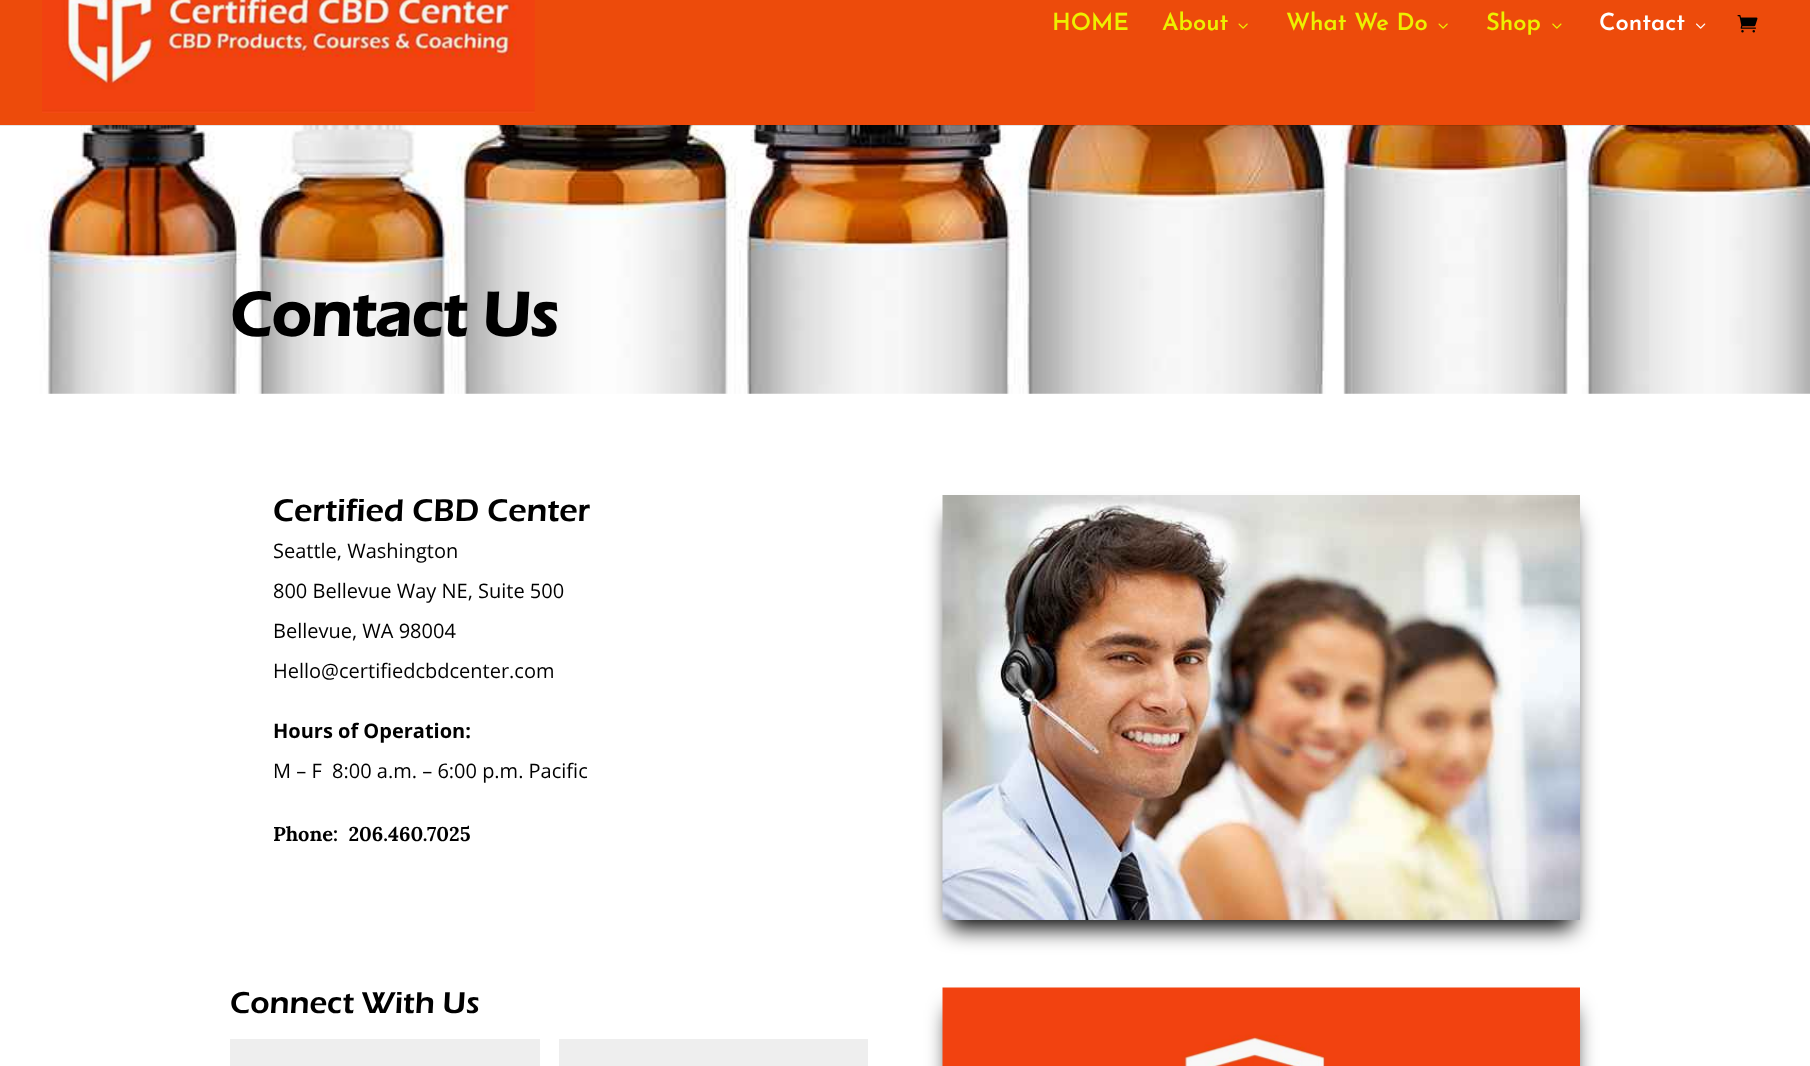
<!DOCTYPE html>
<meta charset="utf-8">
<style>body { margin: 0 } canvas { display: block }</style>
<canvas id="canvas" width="1810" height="1066"></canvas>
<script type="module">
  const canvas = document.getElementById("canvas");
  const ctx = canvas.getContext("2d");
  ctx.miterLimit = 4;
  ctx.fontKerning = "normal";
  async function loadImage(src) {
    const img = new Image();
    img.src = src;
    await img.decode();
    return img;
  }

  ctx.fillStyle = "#ffffff";
  ctx.fillRect(0, 0, 1810, 1066);
  ctx.drawImage(await loadImage("img6.png"), 0, 125, 1810, 269);
  ctx.fillStyle = "rgba(0, 0, 0, 0.1)";
  ctx.fillRect(0, 125, 1810, 1);
  ctx.fillStyle = "#ed4b0b";
  ctx.fillRect(0, 0, 1810, 125);
  ctx.drawImage(await loadImage("img1.png"), 42, 0, 493, 113);
  ctx.font = "100 23.75px Josefin Sans";
  ctx.fillStyle = "#edf000";
  ctx.fillText("HOME", 1052, 30);
  ctx.fillText("About", 1162, 30);
  ctx.drawImage(await loadImage("img2.png"), 1238, 23, 10, 6);
  ctx.fillText("What We Do", 1286, 30);
  ctx.drawImage(await loadImage("img2.png"), 1438, 23, 10, 6);
  ctx.fillText("Shop", 1486, 30);
  ctx.drawImage(await loadImage("img3.png"), 1552, 23, 10, 6);
  ctx.fillStyle = "#ffffff";
  ctx.fillText("Contact", 1599, 30);
  ctx.drawImage(await loadImage("img4.png"), 1696, 23, 10, 6);
  ctx.drawImage(await loadImage("img5.png"), 1737, 15, 21, 18);
  ctx.font = "bold 63.75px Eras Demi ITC";
  ctx.fillStyle = "#000000";
  ctx.fillText("Contact Us", 230, 336);
  ctx.font = "32.5px Eras Demi ITC";
  ctx.fillText("Certified CBD Center", 273, 521);
  ctx.font = "20px Open Sans";
  ctx.fillText("Seattle, Washington", 273, 558);
  ctx.fillText("800 Bellevue Way NE, Suite 500", 273, 598);
  ctx.fillText("Bellevue, WA 98004", 273, 638);
  ctx.fillText("Hello@certifiedcbdcenter.com", 273, 678);
  ctx.font = "bold 20px Open Sans";
  ctx.fillText("Hours of Operation:", 273, 738);
  ctx.font = "20px Open Sans";
  ctx.fillText("M – F  8:00 a.m. – 6:00 p.m. Pacific", 273, 778);
  ctx.font = "bold 20px Lora";
  ctx.fillText("Phone:  206.460.7025", 273, 841);
  ctx.filter = "blur(11px)";
  ctx.beginPath();
  ctx.rect(950, 518, 623, 410);
  ctx.fill();
  ctx.filter = "none";
  ctx.drawImage(await loadImage("img7.png"), 942, 495, 638, 425);
  ctx.font = "31.25px Eras Demi ITC";
  ctx.fillText("Connect With Us", 230, 1013);
  ctx.fillStyle = "#eeeeee";
  ctx.fillRect(230, 1039, 310, 27);
  ctx.fillRect(559, 1039, 309, 27);
  ctx.fillStyle = "#000000";
  ctx.filter = "blur(11px)";
  ctx.beginPath();
  ctx.rect(950, 1010, 623, 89);
  ctx.fill();
  ctx.filter = "none";
  ctx.drawImage(await loadImage("img8.png"), 942, 987, 638, 79);
</script>
